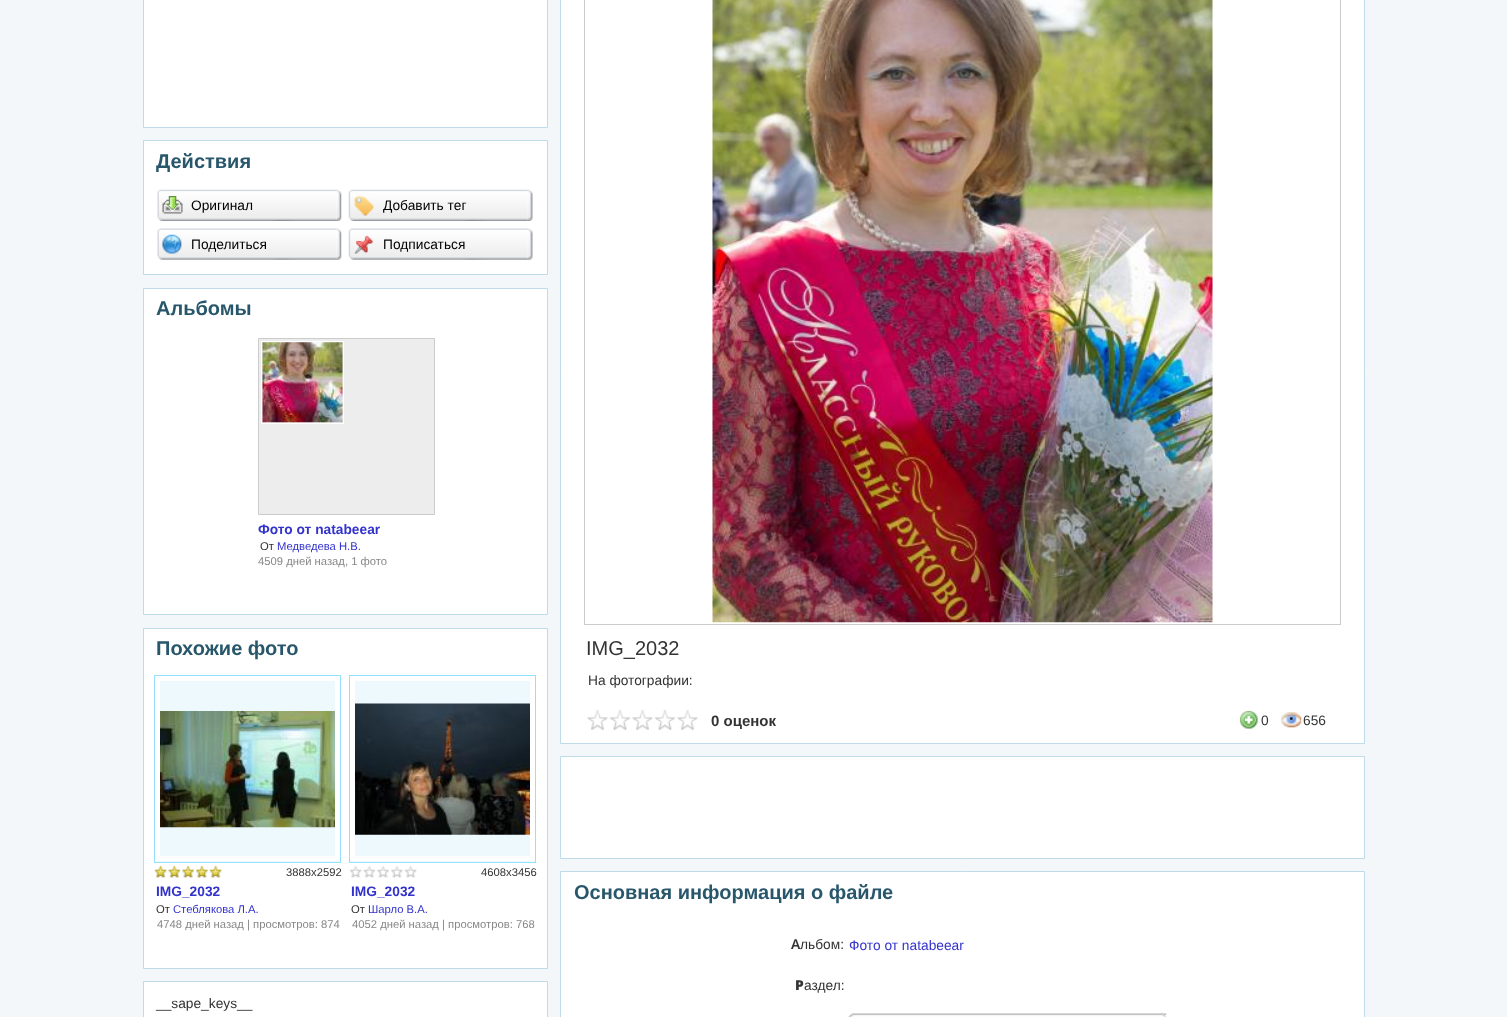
<!DOCTYPE html>
<meta charset="utf-8">
<style>body { margin: 0 } canvas { display: block }</style>
<canvas id="canvas" width="1507" height="1017"></canvas>
<script type="module">
  const canvas = document.getElementById("canvas");
  const ctx = canvas.getContext("2d");
  ctx.miterLimit = 4;
  ctx.fontKerning = "normal";
  async function loadImage(src) {
    const img = new Image();
    img.src = src;
    await img.decode();
    return img;
  }

  ctx.fillStyle = "#f4f7fa";
  ctx.fillRect(0, 0, 1507, 1017);
  ctx.fillStyle = "#ffffff";
  ctx.beginPath();
  ctx.rect(143.5, -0.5, 404, 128);
  ctx.fill();
  ctx.strokeStyle = "#bfdbe7";
  ctx.stroke();
  ctx.beginPath();
  ctx.rect(143.5, 140.5, 404, 134);
  ctx.fill();
  ctx.stroke();
  ctx.font = "bold 20px Liberation Sans";
  ctx.fillStyle = "#28576b";
  ctx.fillText("Действия", 156, 168);
  ctx.drawImage(await loadImage("img1.png"), 157, 189, 180, 32);
  ctx.drawImage(await loadImage("img2.png"), 162, 196, 21, 18);
  ctx.font = "13.75px Liberation Sans";
  ctx.fillStyle = "#000000";
  ctx.fillText("Оригинал", 191, 210);
  ctx.drawImage(await loadImage("img3.png"), 336, 189, 6, 32);
  ctx.drawImage(await loadImage("img4.png"), 348, 189, 180, 32);
  ctx.drawImage(await loadImage("img5.png"), 353, 196, 21, 20);
  ctx.fillText("Добавить тег", 383, 210);
  ctx.drawImage(await loadImage("img6.png"), 527, 189, 6, 32);
  ctx.drawImage(await loadImage("img7.png"), 157, 228, 180, 32);
  ctx.drawImage(await loadImage("img8.png"), 162, 234, 20, 20);
  ctx.fillText("Поделиться", 191, 249);
  ctx.drawImage(await loadImage("img9.png"), 336, 228, 6, 32);
  ctx.drawImage(await loadImage("img10.png"), 348, 228, 180, 32);
  ctx.drawImage(await loadImage("img11.png"), 354, 235, 19, 19);
  ctx.fillText("Подписаться", 383, 249);
  ctx.drawImage(await loadImage("img12.png"), 527, 228, 6, 32);
  ctx.fillStyle = "#ffffff";
  ctx.beginPath();
  ctx.rect(143.5, 288.5, 404, 326);
  ctx.fill();
  ctx.stroke();
  ctx.font = "bold 20px Liberation Sans";
  ctx.fillStyle = "#28576b";
  ctx.fillText("Альбомы", 156, 315);
  ctx.fillStyle = "#ededed";
  ctx.beginPath();
  ctx.rect(258.5, 338.5, 176, 176);
  ctx.fill();
  ctx.strokeStyle = "#cccccc";
  ctx.stroke();
  ctx.drawImage(await loadImage("img13.png"), 262, 342, 81, 81);
  ctx.strokeStyle = "#ffffff";
  ctx.strokeRect(261.5, 341.5, 82, 82);
  ctx.font = "bold 13.75px Liberation Sans";
  ctx.fillStyle = "#3333cc";
  ctx.fillText("Фото от natabeear", 258, 534);
  ctx.font = "11.25px Liberation Sans";
  ctx.fillStyle = "#333333";
  ctx.fillText("От", 260, 550);
  ctx.fillStyle = "#3333cc";
  ctx.fillText("Медведева Н.В.", 277, 550);
  ctx.fillStyle = "#888888";
  ctx.fillText("4509 дней назад, 1 фото", 258, 565);
  ctx.fillStyle = "#ffffff";
  ctx.beginPath();
  ctx.rect(143.5, 628.5, 404, 340);
  ctx.fill();
  ctx.strokeStyle = "#bfdbe7";
  ctx.stroke();
  ctx.font = "bold 20px Liberation Sans";
  ctx.fillStyle = "#28576b";
  ctx.fillText("Похожие фото", 156, 655);
  ctx.fillStyle = "#eef9fd";
  ctx.fillRect(155, 681, 185, 181);
  ctx.drawImage(await loadImage("img14.png"), 160, 711, 175, 117);
  ctx.strokeStyle = "#95dfff";
  ctx.strokeRect(154.5, 675.5, 186, 187);
  ctx.strokeStyle = "#ffffff";
  ctx.lineWidth = 5;
  ctx.strokeRect(157.5, 678.5, 180, 180);
  ctx.drawImage(await loadImage("img15.png"), 155, 866, 67, 12);
  ctx.drawImage(await loadImage("img16.png"), 154, 865, 68, 13);
  ctx.font = "11.25px Liberation Sans";
  ctx.fillStyle = "#333333";
  ctx.fillText("3888x2592", 286, 876);
  ctx.font = "bold 13.75px Liberation Sans";
  ctx.fillStyle = "#3333cc";
  ctx.fillText("IMG_2032", 156, 896);
  ctx.font = "11.25px Liberation Sans";
  ctx.fillStyle = "#333333";
  ctx.fillText("От", 156, 913);
  ctx.fillStyle = "#3333cc";
  ctx.fillText("Стеблякова Л.А.", 173, 913);
  ctx.fillStyle = "#888888";
  ctx.fillText("4748 дней назад | просмотров: 874", 157, 928);
  ctx.fillStyle = "#eef9fd";
  ctx.fillRect(350, 681, 185, 181);
  ctx.drawImage(await loadImage("img17.png"), 355, 703, 175, 132);
  ctx.strokeStyle = "#95dfff";
  ctx.lineWidth = 1;
  ctx.strokeRect(349.5, 675.5, 186, 187);
  ctx.strokeStyle = "#ffffff";
  ctx.lineWidth = 5;
  ctx.strokeRect(352.5, 678.5, 180, 180);
  ctx.drawImage(await loadImage("img18.png"), 350, 866, 67, 12);
  ctx.fillStyle = "#333333";
  ctx.fillText("4608x3456", 481, 876);
  ctx.font = "bold 13.75px Liberation Sans";
  ctx.fillStyle = "#3333cc";
  ctx.fillText("IMG_2032", 351, 896);
  ctx.font = "11.25px Liberation Sans";
  ctx.fillStyle = "#333333";
  ctx.fillText("От", 351, 913);
  ctx.fillStyle = "#3333cc";
  ctx.fillText("Шарло В.А.", 368, 913);
  ctx.fillStyle = "#888888";
  ctx.fillText("4052 дней назад | просмотров: 768", 352, 928);
  ctx.fillStyle = "#ffffff";
  ctx.beginPath();
  ctx.rect(143.5, 981.5, 404, 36);
  ctx.fill();
  ctx.strokeStyle = "#bfdbe7";
  ctx.lineWidth = 1;
  ctx.stroke();
  ctx.font = "13.75px Liberation Sans";
  ctx.fillStyle = "#333333";
  ctx.fillText("__sape_keys__", 156, 1008);
  ctx.fillStyle = "#ffffff";
  ctx.beginPath();
  ctx.rect(560.5, -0.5, 804, 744);
  ctx.fill();
  ctx.stroke();
  ctx.strokeStyle = "#cccccc";
  ctx.strokeRect(584.5, -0.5, 756, 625);
  ctx.drawImage(await loadImage("img19.png"), 712, 0, 501, 623);
  ctx.font = "20px Liberation Sans";
  ctx.fillStyle = "#333333";
  ctx.fillText("IMG_2032", 586, 655);
  ctx.font = "13.75px Liberation Sans";
  ctx.fillText("На фотографии:", 588, 685);
  ctx.drawImage(await loadImage("img20.png"), 587, 709, 111, 21);
  ctx.font = "bold 15px Liberation Sans";
  ctx.fillText("0 оценок", 711, 726);
  ctx.drawImage(await loadImage("img21.png"), 1239, 710, 19, 19);
  ctx.font = "13.75px Liberation Sans";
  ctx.fillText("0", 1261, 725);
  ctx.drawImage(await loadImage("img22.png"), 1281, 712, 21, 16);
  ctx.fillText("656", 1303, 725);
  ctx.fillStyle = "#ffffff";
  ctx.beginPath();
  ctx.rect(560.5, 756.5, 804, 102);
  ctx.fill();
  ctx.strokeStyle = "#bfdbe7";
  ctx.stroke();
  ctx.beginPath();
  ctx.rect(560.5, 871.5, 804, 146);
  ctx.fill();
  ctx.stroke();
  ctx.font = "bold 20px Liberation Sans";
  ctx.fillStyle = "#28576b";
  ctx.fillText("Основная информация о файле", 574, 899);
  ctx.font = "600 13.75px Noto Sans";
  ctx.fillStyle = "#333333";
  ctx.fillText("А", 791, 949);
  ctx.font = "13.75px Liberation Sans";
  ctx.fillText("льбом:", 800, 949);
  ctx.fillStyle = "#3333cc";
  ctx.fillText("Фото от natabeear", 849, 950);
  ctx.font = "900 13.75px Noto Sans";
  ctx.fillStyle = "#333333";
  ctx.fillText("Р", 795, 990);
  ctx.font = "13.75px Liberation Sans";
  ctx.fillText("аздел:", 804, 990);
  ctx.drawImage(await loadImage("img23.png"), 848, 1013, 319, 4);
  ctx.drawImage(await loadImage("img24.png"), 1161, 1013, 6, 4);
</script>
